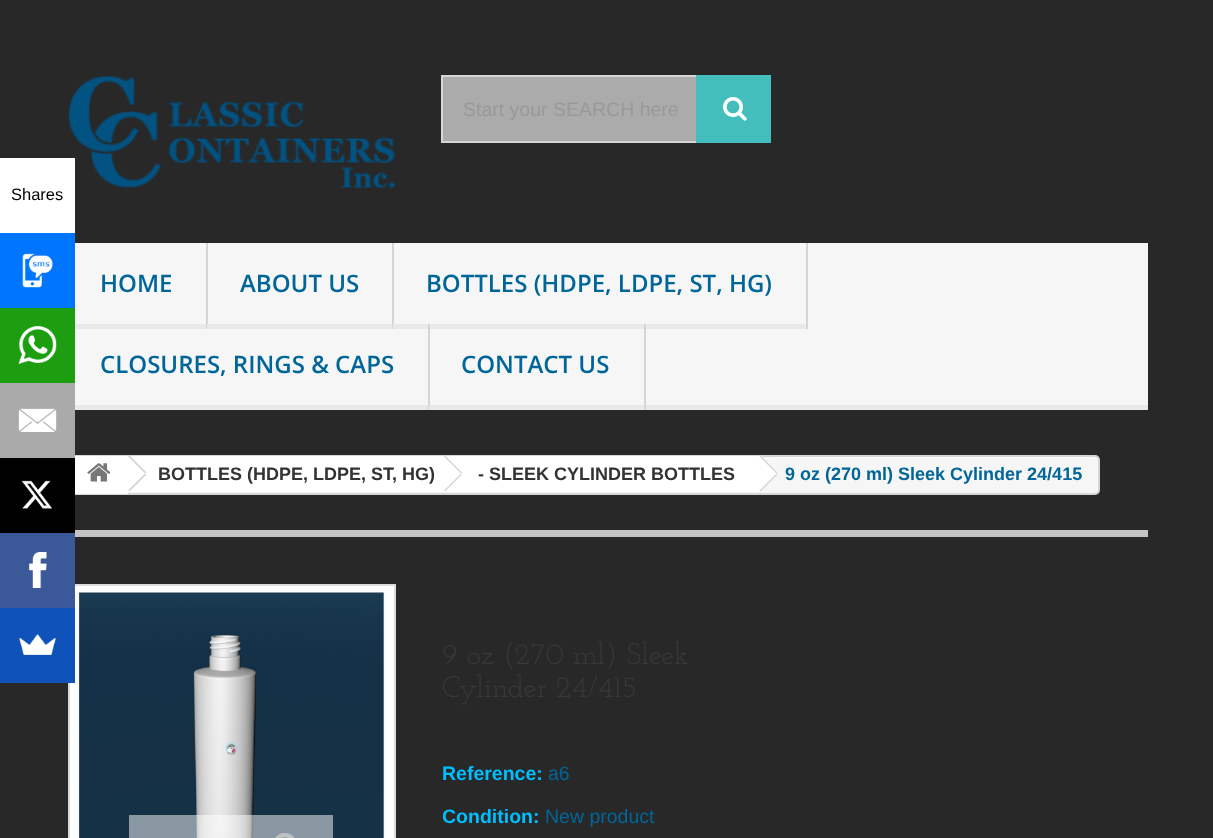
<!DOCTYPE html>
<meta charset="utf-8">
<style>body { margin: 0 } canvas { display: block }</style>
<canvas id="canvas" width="1213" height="838"></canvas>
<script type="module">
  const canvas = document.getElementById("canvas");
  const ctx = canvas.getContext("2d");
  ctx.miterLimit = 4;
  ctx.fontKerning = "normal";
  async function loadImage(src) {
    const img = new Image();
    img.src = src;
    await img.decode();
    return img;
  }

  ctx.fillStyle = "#282828";
  ctx.fillRect(0, 0, 1213, 838);
  ctx.drawImage(await loadImage("img7.png"), 68, 76, 327, 112);
  ctx.fillStyle = "#ffffff";
  ctx.fillRect(0, 158, 75, 75);
  ctx.font = "16.5px Liberation Sans";
  ctx.fillStyle = "#000000";
  ctx.fillText("Shares", 11, 200);
  ctx.fillStyle = "#0076ff";
  ctx.fillRect(0, 233, 75, 75);
  ctx.drawImage(await loadImage("img1.png"), 22, 253, 31, 35);
  ctx.fillStyle = "#f6f6f6";
  ctx.fillRect(75, 243, 1073, 162);
  ctx.fillStyle = "#e9e9e9";
  ctx.fillRect(68, 324, 138, 5);
  ctx.fillStyle = "#1d9e11";
  ctx.fillRect(0, 308, 75, 75);
  ctx.drawImage(await loadImage("img2.png"), 18, 326, 39, 38);
  ctx.fillStyle = "#e9e9e9";
  ctx.fillRect(68, 405, 1080, 5);
  ctx.fillStyle = "#f6f6f6";
  ctx.beginPath();
  ctx.roundRect(69, 456, 1030, 38, 4);
  ctx.fill();
  ctx.strokeStyle = "#d6d4d4";
  ctx.lineWidth = 2;
  ctx.stroke();
  ctx.fillStyle = "#aaaaaa";
  ctx.fillRect(0, 383, 75, 75);
  ctx.drawImage(await loadImage("img3.png"), 18, 408, 39, 24);
  ctx.fillStyle = "#c4c4c4";
  ctx.fillRect(68, 530, 1080, 7);
  ctx.fillStyle = "#000000";
  ctx.fillRect(0, 458, 75, 75);
  ctx.drawImage(await loadImage("img4.png"), 21, 480, 31, 29);
  ctx.fillStyle = "#ffffff";
  ctx.beginPath();
  ctx.rect(69, 585, 326, 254);
  ctx.fill();
  ctx.strokeStyle = "#dbdbdb";
  ctx.stroke();
  ctx.fillStyle = "#3b5998";
  ctx.fillRect(0, 533, 75, 75);
  ctx.drawImage(await loadImage("img5.png"), 29, 552, 18, 36);
  ctx.fillStyle = "#0f52ba";
  ctx.fillRect(0, 608, 75, 75);
  ctx.drawImage(await loadImage("img6.png"), 19, 634, 37, 21);
  ctx.fillStyle = "#ababab";
  ctx.fillRect(443, 77, 253, 64);
  ctx.strokeStyle = "#d6d4d4";
  ctx.strokeRect(442, 76, 328, 66);
  ctx.font = "19.5px Liberation Sans";
  ctx.fillStyle = "#999999";
  ctx.fillText("Start your SEARCH here", 463, 116);
  ctx.fillStyle = "#43bebd";
  ctx.fillRect(696, 75, 75, 68);
  ctx.drawImage(await loadImage("img8.png"), 723, 97, 24, 24);
  ctx.fillStyle = "#d6d4d4";
  ctx.fillRect(206, 243, 2, 86);
  ctx.font = "600 24px Open Sans";
  ctx.fillStyle = "#006699";
  ctx.fillText("HOME", 100, 292);
  ctx.fillStyle = "#d6d4d4";
  ctx.fillRect(392, 243, 2, 86);
  ctx.fillStyle = "#e9e9e9";
  ctx.fillRect(207, 324, 185, 5);
  ctx.fillStyle = "#006699";
  ctx.fillText("ABOUT US", 240, 292);
  ctx.fillStyle = "#d6d4d4";
  ctx.fillRect(806, 243, 2, 86);
  ctx.fillStyle = "#e9e9e9";
  ctx.fillRect(393, 324, 413, 5);
  ctx.fillStyle = "#006699";
  ctx.fillText("BOTTLES (HDPE, LDPE, ST, HG)", 426, 292);
  ctx.fillStyle = "#d6d4d4";
  ctx.fillRect(428, 324, 2, 86);
  ctx.fillStyle = "#006699";
  ctx.fillText("CLOSURES, RINGS & CAPS", 100, 373);
  ctx.fillStyle = "#d6d4d4";
  ctx.fillRect(644, 324, 2, 86);
  ctx.fillStyle = "#e9e9e9";
  ctx.fillRect(429, 405, 1, 5);
  ctx.fillStyle = "#006699";
  ctx.fillText("CONTACT US", 461, 373);
  ctx.fillStyle = "#ffffff";
  ctx.fillRect(75, 456, 53, 38);
  ctx.drawImage(await loadImage("img9.png"), 87, 463, 24, 19);
  ctx.fillRect(128, 456, 318, 36);
  ctx.fillStyle = "#d6d4d4";
  ctx.beginPath();
  ctx.moveTo(130, 456);
  ctx.lineTo(146.5, 472.5);
  ctx.lineTo(145, 473.5);
  ctx.lineTo(128, 456.5);
  ctx.lineTo(129, 456);
  ctx.closePath();
  ctx.fill();
  ctx.beginPath();
  ctx.moveTo(145, 473.5);
  ctx.lineTo(146.5, 474.5);
  ctx.lineTo(129.5, 491.5);
  ctx.lineTo(128, 490.5);
  ctx.closePath();
  ctx.fill();
  ctx.font = "bold 18px Liberation Sans";
  ctx.fillStyle = "#333333";
  ctx.fillText("BOTTLES (HDPE, LDPE, ST, HG)", 158, 480);
  ctx.fillStyle = "#ffffff";
  ctx.beginPath();
  ctx.moveTo(461, 456.5);
  ctx.lineTo(460, 456);
  ctx.lineTo(457.5, 456);
  ctx.lineTo(456.5, 456.5);
  ctx.lineTo(442, 471.5);
  ctx.bezierCurveTo(440.5, 472.5, 440.5, 474.5, 442, 475.5);
  ctx.lineTo(456.5, 490.5);
  ctx.bezierCurveTo(458, 491.5, 460, 491.5, 461, 490.5);
  ctx.lineTo(476, 475.5);
  ctx.bezierCurveTo(477, 474.5, 477, 472.5, 476, 471.5);
  ctx.closePath();
  ctx.fill();
  ctx.fillRect(446, 456, 312, 36);
  ctx.fillStyle = "#d6d4d4";
  ctx.beginPath();
  ctx.moveTo(445, 455.5);
  ctx.lineTo(462, 472.5);
  ctx.lineTo(461, 473.5);
  ctx.lineTo(444, 456.5);
  ctx.closePath();
  ctx.fill();
  ctx.beginPath();
  ctx.moveTo(461, 473.5);
  ctx.lineTo(462, 474.5);
  ctx.lineTo(445, 491.5);
  ctx.lineTo(444, 490.5);
  ctx.closePath();
  ctx.fill();
  ctx.fillStyle = "#333333";
  ctx.fillText("- SLEEK CYLINDER BOTTLES", 478, 480);
  ctx.fillStyle = "#ffffff";
  ctx.beginPath();
  ctx.moveTo(761.5, 456.5);
  ctx.lineTo(760.5, 456);
  ctx.lineTo(758, 456);
  ctx.lineTo(757, 456.5);
  ctx.lineTo(742.5, 471.5);
  ctx.bezierCurveTo(741, 472.5, 741, 474.5, 742.5, 475.5);
  ctx.lineTo(757, 490.5);
  ctx.bezierCurveTo(758.5, 491.5, 760.5, 491.5, 761.5, 490.5);
  ctx.lineTo(776.5, 475.5);
  ctx.bezierCurveTo(777.5, 474.5, 777.5, 472.5, 776.5, 471.5);
  ctx.closePath();
  ctx.fill();
  ctx.fillStyle = "#d6d4d4";
  ctx.beginPath();
  ctx.moveTo(760.5, 455.5);
  ctx.lineTo(777.5, 472.5);
  ctx.lineTo(776.5, 473.5);
  ctx.lineTo(759.5, 456.5);
  ctx.closePath();
  ctx.fill();
  ctx.beginPath();
  ctx.moveTo(776.5, 473.5);
  ctx.lineTo(777.5, 474.5);
  ctx.lineTo(760.5, 491.5);
  ctx.lineTo(759.5, 490.5);
  ctx.closePath();
  ctx.fill();
  ctx.fillStyle = "#006699";
  ctx.fillText("9 oz (270 ml) Sleek Cylinder 24/415", 785, 480);
  ctx.fillStyle = "#fbfbfb";
  ctx.fillRect(77, 593, 310, 245);
  ctx.drawImage(await loadImage("img10.png"), 79, 592, 305, 246);
  ctx.fillStyle = "rgba(255, 255, 255, 0.5)";
  ctx.fillRect(129, 815, 204, 23);
  ctx.drawImage(await loadImage("img11.png"), 275, 833, 20, 5);
  ctx.font = "100 30px Josefin Slab";
  ctx.fillStyle = "#3a3939";
  ctx.fillText("9 oz (270 ml) Sleek", 442, 664);
  ctx.fillText("Cylinder 24/415", 442, 697);
  ctx.font = "bold 19.5px Liberation Sans";
  ctx.fillStyle = "#00bfff";
  ctx.fillText("Reference:", 442, 780);
  ctx.font = "19.5px Liberation Sans";
  ctx.fillStyle = "#006699";
  ctx.fillText("a6", 548, 780);
  ctx.font = "bold 19.5px Liberation Sans";
  ctx.fillStyle = "#00bfff";
  ctx.fillText("Condition:", 442, 823);
  ctx.font = "19.5px Liberation Sans";
  ctx.fillStyle = "#006699";
  ctx.fillText("New product", 545, 823);
</script>
